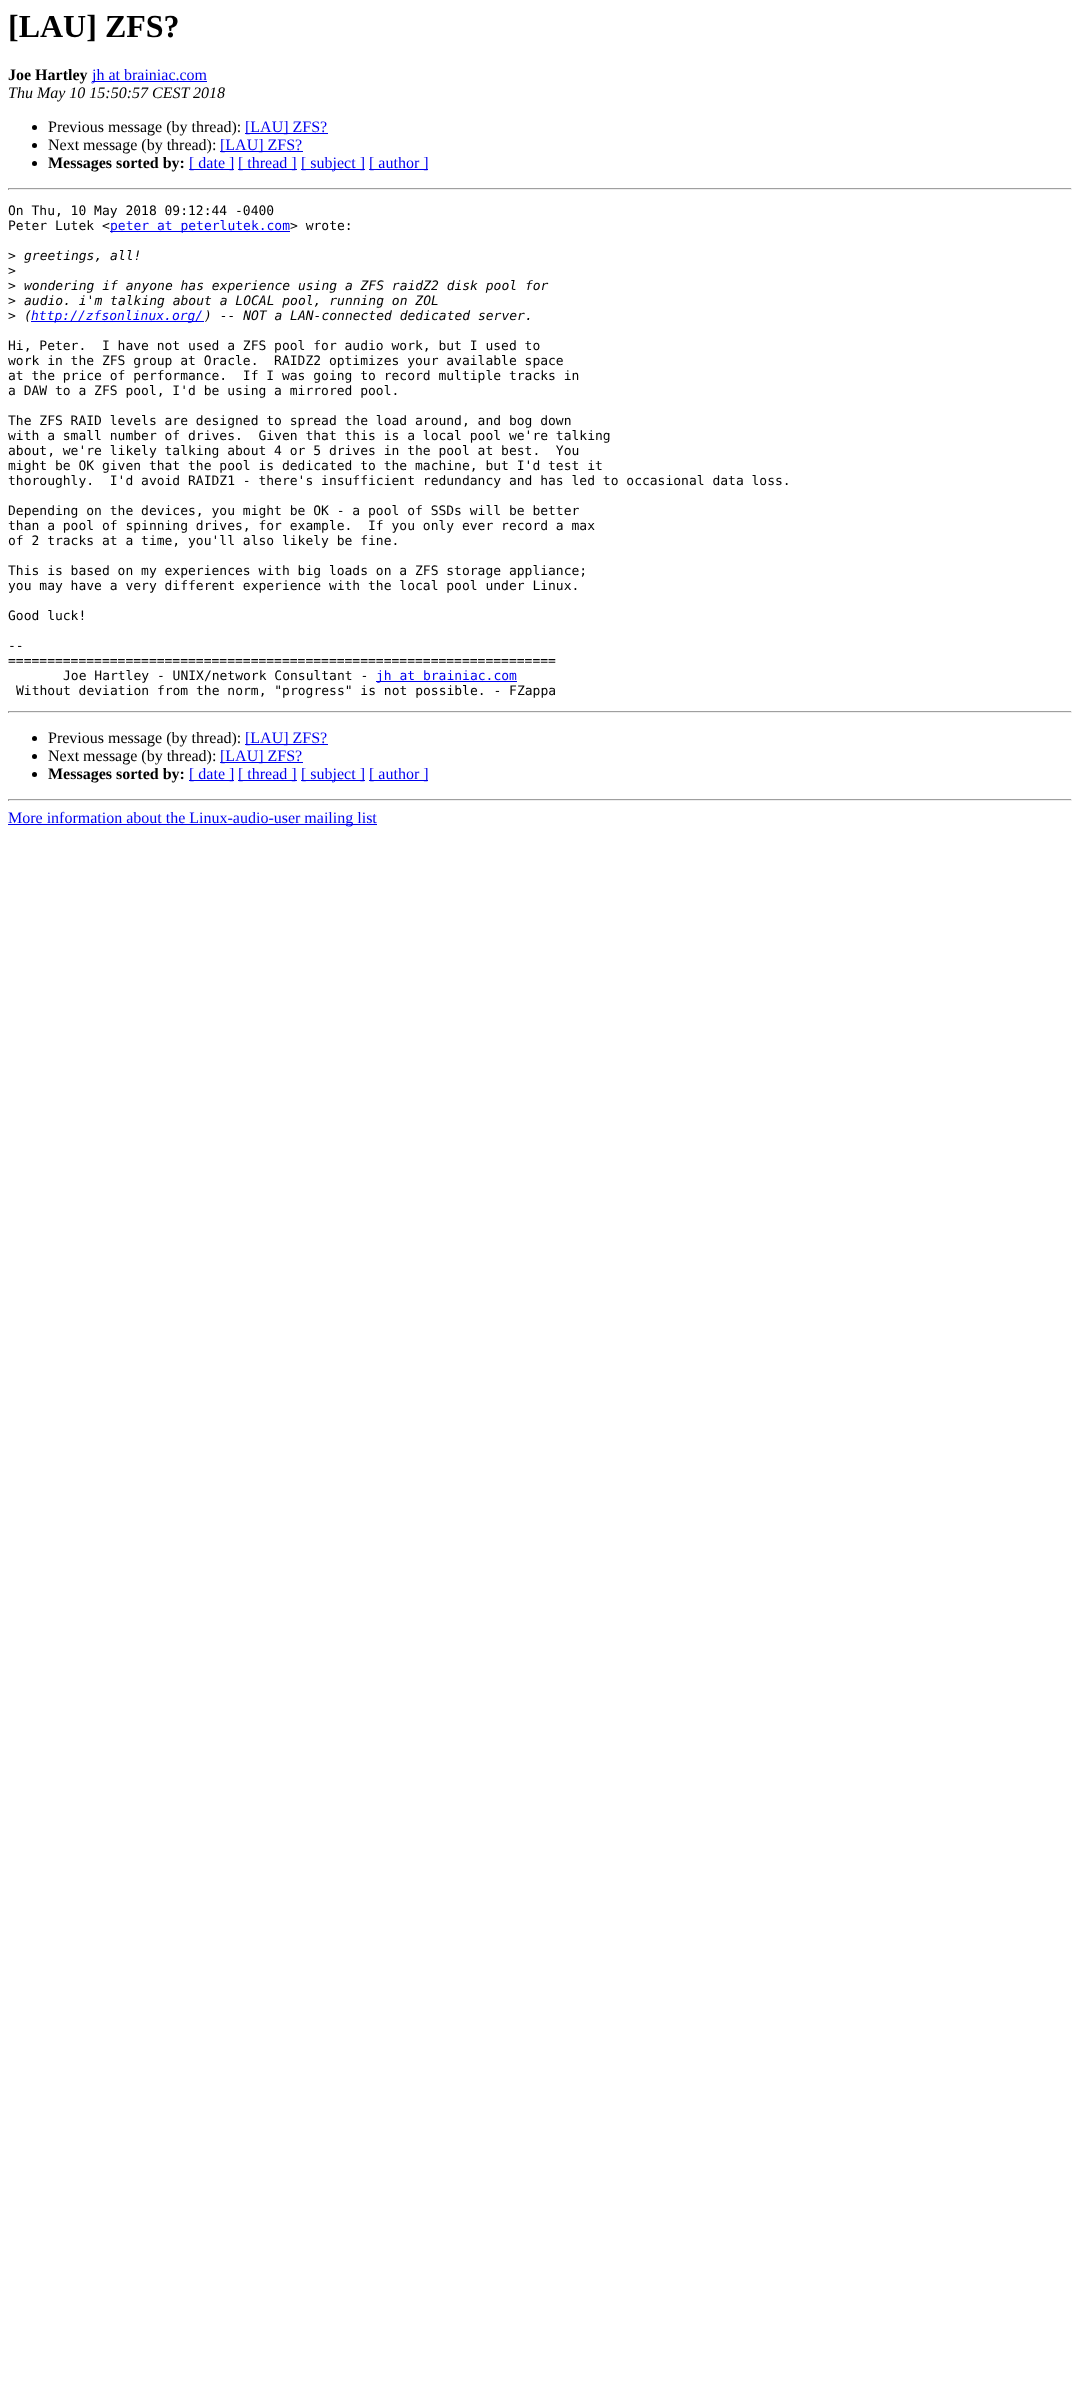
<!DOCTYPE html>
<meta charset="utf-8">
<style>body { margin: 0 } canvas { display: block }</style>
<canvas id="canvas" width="1080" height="2385"></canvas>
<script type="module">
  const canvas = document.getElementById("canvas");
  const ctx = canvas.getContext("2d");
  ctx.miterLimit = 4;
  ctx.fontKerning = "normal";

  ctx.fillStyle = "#ffffff";
  ctx.fillRect(0, 0, 1080, 2385);
  ctx.font = "bold 32px Liberation Serif";
  ctx.fillStyle = "#000000";
  ctx.fillText("[LAU] ZFS?", 8, 37);
  ctx.font = "bold 16px Liberation Serif";
  ctx.fillText("Joe Hartley", 8, 80);
  ctx.fillStyle = "#0000ee";
  ctx.fillRect(92, 81, 115, 1);
  ctx.font = "16px Liberation Serif";
  ctx.fillText("jh at brainiac.com", 92, 80);
  ctx.font = "italic 16px Liberation Serif";
  ctx.fillStyle = "#000000";
  ctx.fillText("Thu May 10 15:50:57 CEST 2018", 8, 98);
  ctx.beginPath();
  ctx.arc(34.5, 127.5, 2.5, 0, Math.PI * 2);
  ctx.fill();
  ctx.font = "16px Liberation Serif";
  ctx.fillText("Previous message (by thread):", 48, 132);
  ctx.fillStyle = "#0000ee";
  ctx.fillRect(245, 133, 83, 1);
  ctx.fillText("[LAU] ZFS?", 245, 132);
  ctx.fillStyle = "#000000";
  ctx.beginPath();
  ctx.arc(34.5, 145.5, 2.5, 0, Math.PI * 2);
  ctx.fill();
  ctx.fillText("Next message (by thread):", 48, 150);
  ctx.fillStyle = "#0000ee";
  ctx.fillRect(220, 151, 83, 1);
  ctx.fillText("[LAU] ZFS?", 220, 150);
  ctx.fillStyle = "#000000";
  ctx.beginPath();
  ctx.arc(34.5, 163.5, 2.5, 0, Math.PI * 2);
  ctx.fill();
  ctx.font = "bold 16px Liberation Serif";
  ctx.fillText("Messages sorted by:", 48, 168);
  ctx.fillStyle = "#0000ee";
  ctx.fillRect(189, 169, 45, 1);
  ctx.font = "16px Liberation Serif";
  ctx.fillText("[ date ]", 189, 168);
  ctx.fillRect(238, 169, 59, 1);
  ctx.fillText("[ thread ]", 238, 168);
  ctx.fillRect(301, 169, 64, 1);
  ctx.fillText("[ subject ]", 301, 168);
  ctx.fillRect(369, 169, 59, 1);
  ctx.fillText("[ author ]", 369, 168);
  ctx.fillStyle = "#9f9f9f";
  ctx.fillRect(8, 188, 1064, 1);
  ctx.fillStyle = "#eeeeee";
  ctx.fillRect(1071, 188, 1, 2);
  ctx.fillRect(8, 189, 1064, 1);
  ctx.fillStyle = "#9f9f9f";
  ctx.fillRect(8, 188, 1, 2);
  ctx.font = "13px DejaVu Sans Mono";
  ctx.fillStyle = "#000000";
  ctx.fillText("On Thu, 10 May 2018 09:12:44 -0400", 8, 215);
  ctx.fillText("Peter Lutek <", 8, 230);
  ctx.fillStyle = "#0000ee";
  ctx.fillRect(110, 231, 180, 1);
  ctx.fillText("peter at peterlutek.com", 110, 230);
  ctx.fillStyle = "#000000";
  ctx.fillText("> wrote:", 290, 230);
  ctx.fillText(">", 8, 260);
  ctx.font = "italic 13px DejaVu Sans Mono";
  ctx.fillText("greetings, all!", 24, 260);
  ctx.font = "13px DejaVu Sans Mono";
  ctx.fillText(">", 8, 275);
  ctx.fillText(">", 8, 290);
  ctx.font = "italic 13px DejaVu Sans Mono";
  ctx.fillText("wondering if anyone has experience using a ZFS raidZ2 disk pool for", 24, 290);
  ctx.font = "13px DejaVu Sans Mono";
  ctx.fillText(">", 8, 305);
  ctx.font = "italic 13px DejaVu Sans Mono";
  ctx.fillText("audio. i'm talking about a LOCAL pool, running on ZOL", 24, 305);
  ctx.font = "13px DejaVu Sans Mono";
  ctx.fillText(">", 8, 320);
  ctx.font = "italic 13px DejaVu Sans Mono";
  ctx.fillText("(", 24, 320);
  ctx.fillStyle = "#0000ee";
  ctx.fillRect(31, 321, 173, 1);
  ctx.fillText("http://zfsonlinux.org/", 31, 320);
  ctx.fillStyle = "#000000";
  ctx.fillText(") -- NOT a LAN-connected dedicated server.", 204, 320);
  ctx.font = "13px DejaVu Sans Mono";
  ctx.fillText("Hi, Peter.  I have not used a ZFS pool for audio work, but I used to", 8, 350);
  ctx.fillText("work in the ZFS group at Oracle.  RAIDZ2 optimizes your available space", 8, 365);
  ctx.fillText("at the price of performance.  If I was going to record multiple tracks in", 8, 380);
  ctx.fillText("a DAW to a ZFS pool, I'd be using a mirrored pool.", 8, 395);
  ctx.fillText("The ZFS RAID levels are designed to spread the load around, and bog down", 8, 425);
  ctx.fillText("with a small number of drives.  Given that this is a local pool we're talking", 8, 440);
  ctx.fillText("about, we're likely talking about 4 or 5 drives in the pool at best.  You", 8, 455);
  ctx.fillText("might be OK given that the pool is dedicated to the machine, but I'd test it", 8, 470);
  ctx.fillText("thoroughly.  I'd avoid RAIDZ1 - there's insufficient redundancy and has led to occasional data loss.", 8, 485);
  ctx.fillText("Depending on the devices, you might be OK - a pool of SSDs will be better", 8, 515);
  ctx.fillText("than a pool of spinning drives, for example.  If you only ever record a max", 8, 530);
  ctx.fillText("of 2 tracks at a time, you'll also likely be fine.", 8, 545);
  ctx.fillText("This is based on my experiences with big loads on a ZFS storage appliance;", 8, 575);
  ctx.fillText("you may have a very different experience with the local pool under Linux.", 8, 590);
  ctx.fillText("Good luck!", 8, 620);
  ctx.fillText("--", 8, 650);
  ctx.fillText("======================================================================", 8, 665);
  ctx.fillText("Joe Hartley - UNIX/network Consultant -", 63, 680);
  ctx.fillStyle = "#0000ee";
  ctx.fillRect(376, 681, 141, 1);
  ctx.fillText("jh at brainiac.com", 376, 680);
  ctx.fillStyle = "#000000";
  ctx.fillText("Without deviation from the norm, \"progress\" is not possible. - FZappa", 16, 695);
  ctx.fillStyle = "#9f9f9f";
  ctx.fillRect(8, 711, 1064, 1);
  ctx.fillStyle = "#eeeeee";
  ctx.fillRect(1071, 711, 1, 2);
  ctx.fillRect(8, 712, 1064, 1);
  ctx.fillStyle = "#9f9f9f";
  ctx.fillRect(8, 711, 1, 2);
  ctx.fillStyle = "#000000";
  ctx.beginPath();
  ctx.arc(34.5, 738.5, 2.5, 0, Math.PI * 2);
  ctx.fill();
  ctx.font = "16px Liberation Serif";
  ctx.fillText("Previous message (by thread):", 48, 743);
  ctx.fillStyle = "#0000ee";
  ctx.fillRect(245, 744, 83, 1);
  ctx.fillText("[LAU] ZFS?", 245, 743);
  ctx.fillStyle = "#000000";
  ctx.beginPath();
  ctx.arc(34.5, 756.5, 2.5, 0, Math.PI * 2);
  ctx.fill();
  ctx.fillText("Next message (by thread):", 48, 761);
  ctx.fillStyle = "#0000ee";
  ctx.fillRect(220, 762, 83, 1);
  ctx.fillText("[LAU] ZFS?", 220, 761);
  ctx.fillStyle = "#000000";
  ctx.beginPath();
  ctx.arc(34.5, 774.5, 2.5, 0, Math.PI * 2);
  ctx.fill();
  ctx.font = "bold 16px Liberation Serif";
  ctx.fillText("Messages sorted by:", 48, 779);
  ctx.fillStyle = "#0000ee";
  ctx.fillRect(189, 780, 45, 1);
  ctx.font = "16px Liberation Serif";
  ctx.fillText("[ date ]", 189, 779);
  ctx.fillRect(238, 780, 59, 1);
  ctx.fillText("[ thread ]", 238, 779);
  ctx.fillRect(301, 780, 64, 1);
  ctx.fillText("[ subject ]", 301, 779);
  ctx.fillRect(369, 780, 59, 1);
  ctx.fillText("[ author ]", 369, 779);
  ctx.fillStyle = "#9f9f9f";
  ctx.fillRect(8, 799, 1064, 1);
  ctx.fillStyle = "#eeeeee";
  ctx.fillRect(1071, 799, 1, 2);
  ctx.fillRect(8, 800, 1064, 1);
  ctx.fillStyle = "#9f9f9f";
  ctx.fillRect(8, 799, 1, 2);
  ctx.fillStyle = "#0000ee";
  ctx.fillRect(8, 824, 369, 1);
  ctx.fillText("More information about the Linux-audio-user mailing list", 8, 823);
</script>
